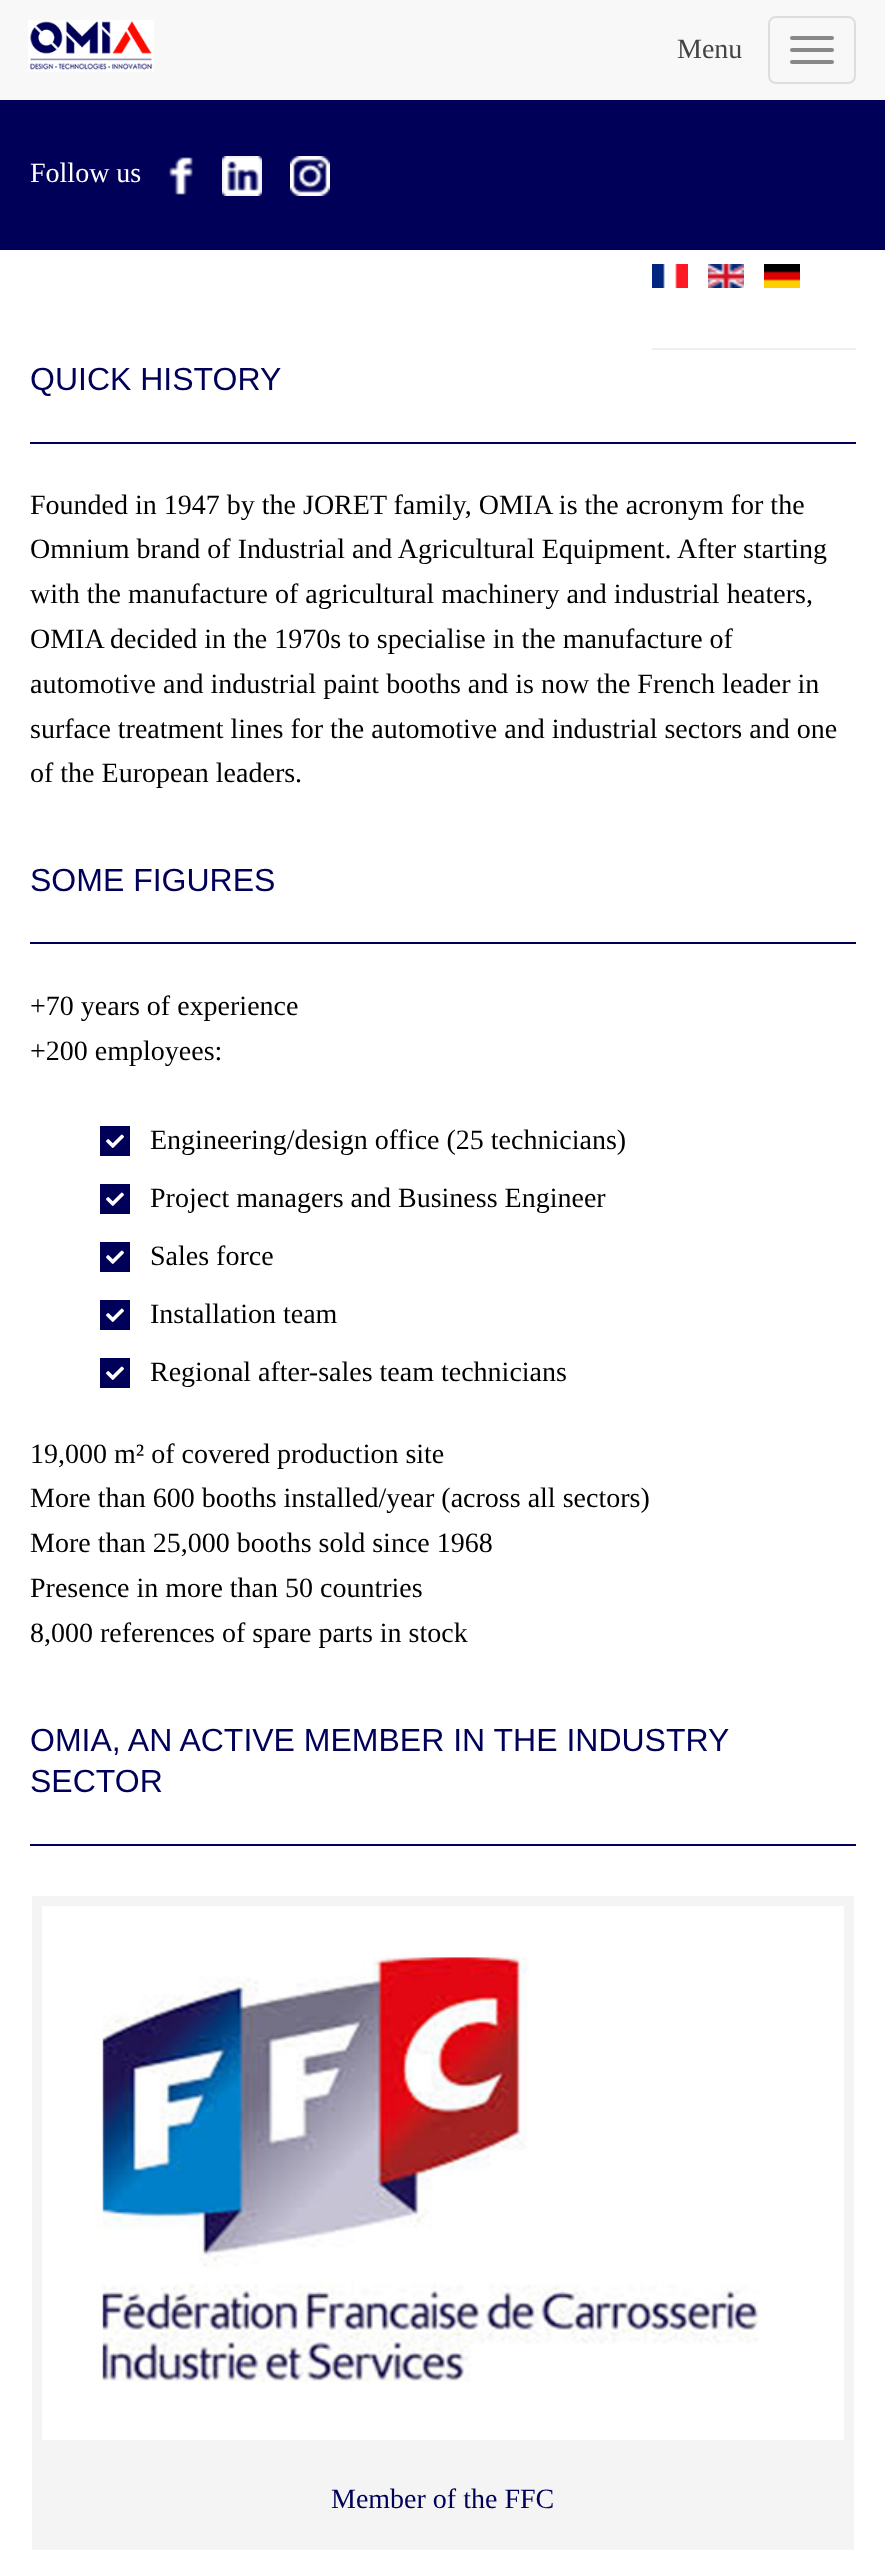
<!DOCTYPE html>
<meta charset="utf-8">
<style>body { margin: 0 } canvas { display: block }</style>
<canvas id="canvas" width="885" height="2552"></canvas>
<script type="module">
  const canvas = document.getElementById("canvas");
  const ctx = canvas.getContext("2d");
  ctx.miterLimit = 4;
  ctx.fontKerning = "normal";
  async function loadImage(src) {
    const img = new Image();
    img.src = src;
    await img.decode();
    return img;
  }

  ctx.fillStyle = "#ffffff";
  ctx.fillRect(0, 0, 885, 2552);
  ctx.fillStyle = "#f8f8f8";
  ctx.fillRect(0, 0, 885, 100);
  ctx.drawImage(await loadImage("img1.png"), 28, 20, 126, 52);
  ctx.font = "28px Liberation Serif";
  ctx.fillStyle = "#444444";
  ctx.fillText("Menu", 677, 58);
  ctx.beginPath();
  ctx.roundRect(769, 17, 86, 66, 7);
  ctx.strokeStyle = "#dddddd";
  ctx.lineWidth = 2;
  ctx.stroke();
  ctx.fillStyle = "#888888";
  ctx.beginPath();
  ctx.roundRect(790, 36, 44, 4, 2);
  ctx.fill();
  ctx.beginPath();
  ctx.roundRect(790, 48, 44, 4, 2);
  ctx.fill();
  ctx.beginPath();
  ctx.roundRect(790, 60, 44, 4, 2);
  ctx.fill();
  ctx.fillStyle = "#000059";
  ctx.fillRect(0, 100, 885, 150);
  ctx.fillStyle = "#ffffff";
  ctx.fillText("Follow us", 30, 182);
  ctx.drawImage(await loadImage("img2.png"), 169, 157, 24, 38);
  ctx.drawImage(await loadImage("img3.png"), 222, 156, 40, 40);
  ctx.drawImage(await loadImage("img4.png"), 290, 156, 40, 40);
  ctx.fillStyle = "#eeeeee";
  ctx.fillRect(652, 348, 204, 2);
  ctx.drawImage(await loadImage("img5.png"), 652, 264, 36, 24);
  ctx.drawImage(await loadImage("img6.png"), 708, 264, 36, 24);
  ctx.drawImage(await loadImage("img7.png"), 764, 264, 36, 24);
  ctx.font = "32px Liberation Sans";
  ctx.fillStyle = "#000059";
  ctx.fillText("QUICK HISTORY", 30, 390);
  ctx.fillRect(30, 442, 826, 2);
  ctx.font = "28px Liberation Serif";
  ctx.fillStyle = "#000000";
  ctx.fillText("Founded in 1947 by the JORET family, OMIA is the acronym for the", 30, 514);
  ctx.fillText("Omnium brand of Industrial and Agricultural Equipment. After starting", 30, 558);
  ctx.fillText("with the manufacture of agricultural machinery and industrial heaters,", 30, 603);
  ctx.fillText("OMIA decided in the 1970s to specialise in the manufacture of", 30, 648);
  ctx.fillText("automotive and industrial paint booths and is now the French leader in", 30, 693);
  ctx.fillText("surface treatment lines for the automotive and industrial sectors and one", 30, 738);
  ctx.fillText("of the European leaders.", 30, 782);
  ctx.font = "32px Liberation Sans";
  ctx.fillStyle = "#000059";
  ctx.fillText("SOME FIGURES", 30, 891);
  ctx.fillRect(30, 942, 826, 2);
  ctx.font = "28px Liberation Serif";
  ctx.fillStyle = "#000000";
  ctx.fillText("+70 years of experience", 30, 1015);
  ctx.fillText("+200 employees:", 30, 1060);
  ctx.fillStyle = "#000059";
  ctx.fillRect(100, 1126, 30, 30);
  ctx.fillStyle = "#000000";
  ctx.fillText("Engineering/design office (25 technicians)", 150, 1149);
  ctx.drawImage(await loadImage("img8.png"), 106, 1134, 18, 14);
  ctx.fillStyle = "#000059";
  ctx.fillRect(100, 1184, 30, 30);
  ctx.fillStyle = "#000000";
  ctx.fillText("Project managers and Business Engineer", 150, 1207);
  ctx.drawImage(await loadImage("img8.png"), 106, 1192, 18, 14);
  ctx.fillStyle = "#000059";
  ctx.fillRect(100, 1242, 30, 30);
  ctx.fillStyle = "#000000";
  ctx.fillText("Sales force", 150, 1265);
  ctx.drawImage(await loadImage("img8.png"), 106, 1250, 18, 14);
  ctx.fillStyle = "#000059";
  ctx.fillRect(100, 1300, 30, 30);
  ctx.fillStyle = "#000000";
  ctx.fillText("Installation team", 150, 1323);
  ctx.drawImage(await loadImage("img8.png"), 106, 1308, 18, 14);
  ctx.fillStyle = "#000059";
  ctx.fillRect(100, 1358, 30, 30);
  ctx.fillStyle = "#000000";
  ctx.fillText("Regional after-sales team technicians", 150, 1381);
  ctx.drawImage(await loadImage("img8.png"), 106, 1366, 18, 14);
  ctx.fillText("19,000 m² of covered production site", 30, 1463);
  ctx.fillText("More than 600 booths installed/year (across all sectors)", 30, 1507);
  ctx.fillText("More than 25,000 booths sold since 1968", 30, 1552);
  ctx.fillText("Presence in more than 50 countries", 30, 1597);
  ctx.fillText("8,000 references of spare parts in stock", 30, 1642);
  ctx.font = "32px Liberation Sans";
  ctx.fillStyle = "#000059";
  ctx.fillText("OMIA, AN ACTIVE MEMBER IN THE INDUSTRY", 30, 1751);
  ctx.fillText("SECTOR", 30, 1792);
  ctx.fillRect(30, 1844, 826, 2);
  ctx.fillStyle = "#f4f4f4";
  ctx.fillRect(32, 1896, 822, 654);
  ctx.drawImage(await loadImage("img9.png"), 42, 1906, 802, 534);
  ctx.font = "28px Liberation Serif";
  ctx.fillStyle = "#000059";
  ctx.fillText("Member of the FFC", 331, 2508);
</script>
